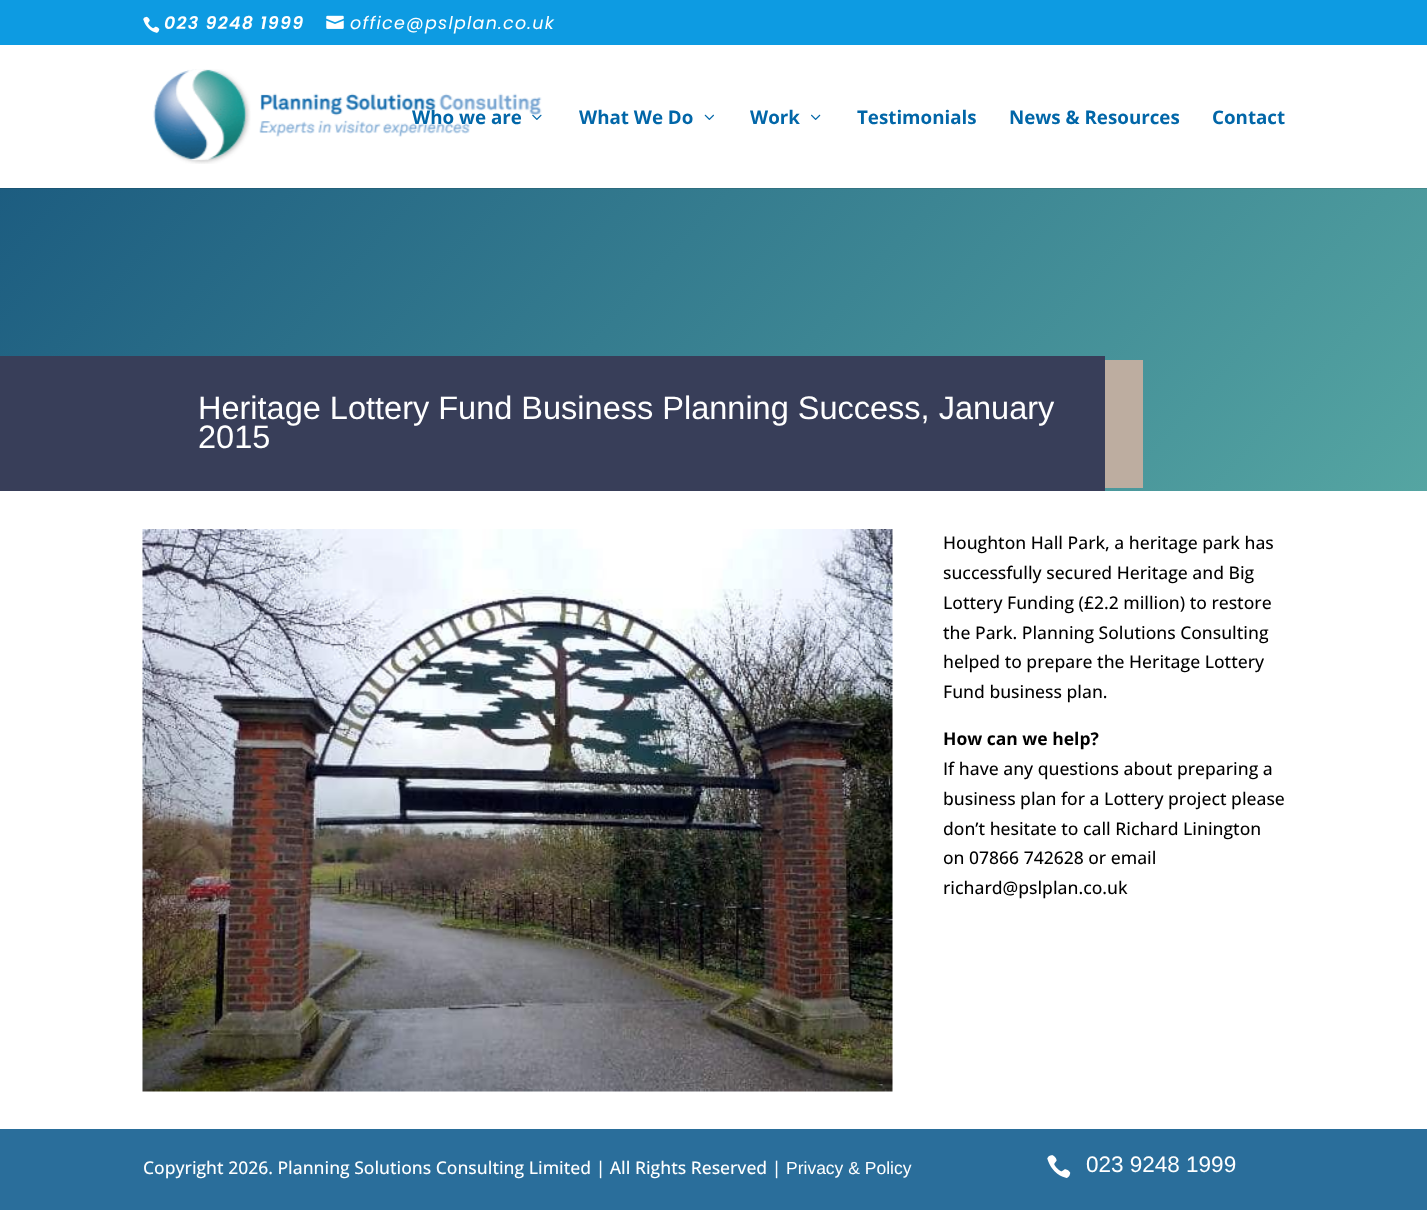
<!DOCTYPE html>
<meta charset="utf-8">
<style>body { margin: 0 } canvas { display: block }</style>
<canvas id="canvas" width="1427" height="1210"></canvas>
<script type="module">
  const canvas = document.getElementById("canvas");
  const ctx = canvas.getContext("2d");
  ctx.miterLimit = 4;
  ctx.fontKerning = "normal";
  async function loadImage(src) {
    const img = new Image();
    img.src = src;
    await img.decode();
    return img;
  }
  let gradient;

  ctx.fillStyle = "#ffffff";
  ctx.fillRect(0, 0, 1427, 1210);
  ctx.fillStyle = "#0d9be2";
  ctx.fillRect(0, 0, 1427, 45);
  ctx.drawImage(await loadImage("img1.png"), 143, 16, 17, 17);
  ctx.letterSpacing = "1.25px";
  ctx.font = "italic 600 17.5px Poppins";
  ctx.fillStyle = "#ffffff";
  ctx.fillText("023 9248 1999", 164, 29);
  ctx.drawImage(await loadImage("img2.png"), 326, 15, 18, 14);
  ctx.font = "italic 17.5px Poppins";
  ctx.fillText("office@pslplan.co.uk", 350, 29);
  gradient = ctx.createLinearGradient(239, -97, 1188, 757);
  gradient.addColorStop(0, "#1c5c80");
  gradient.addColorStop(1, "#55a5a2");
  ctx.fillStyle = gradient;
  ctx.fillRect(0, 188, 1427, 303);
  ctx.fillStyle = "rgba(0, 0, 0, 0.1)";
  ctx.beginPath();
  ctx.moveTo(0, 188);
  ctx.lineTo(0, 189);
  ctx.lineTo(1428, 189);
  ctx.lineTo(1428, 46);
  ctx.lineTo(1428, 188);
  ctx.closePath();
  ctx.fill();
  ctx.drawImage(await loadImage("img3.png"), 153, 69, 389, 95);
  ctx.letterSpacing = "0px";
  ctx.font = "bold 18.75px Open Sans";
  ctx.fillStyle = "#0166a8";
  ctx.fillText("Who we are", 412, 124);
  ctx.drawImage(await loadImage("img4.png"), 532, 114, 10, 6);
  ctx.fillText("What We Do", 579, 124);
  ctx.drawImage(await loadImage("img5.png"), 704, 114, 10, 6);
  ctx.fillText("Work", 750, 124);
  ctx.drawImage(await loadImage("img6.png"), 811, 114, 10, 6);
  ctx.fillText("Testimonials", 857, 124);
  ctx.fillText("News & Resources", 1009, 124);
  ctx.fillText("Contact", 1212, 124);
  ctx.fillStyle = "#383e59";
  ctx.fillRect(0, 356, 1105, 135);
  ctx.fillStyle = "#bdada0";
  ctx.fillRect(1105, 360, 38, 128);
  ctx.font = "32.5px Liberation Sans";
  ctx.fillStyle = "#ffffff";
  ctx.fillText("Heritage Lottery Fund Business Planning Success, January", 198, 419);
  ctx.fillText("2015", 198, 448);
  ctx.drawImage(await loadImage("img7.png"), 142, 529, 751, 563);
  ctx.font = "500 17.5px Open Sans";
  ctx.fillStyle = "#000000";
  ctx.fillText("Houghton Hall Park, a heritage park has", 943, 549);
  ctx.fillText("successfully secured Heritage and Big", 943, 579);
  ctx.fillText("Lottery Funding (£2.2 million) to restore", 943, 609);
  ctx.fillText("the Park. Planning Solutions Consulting", 943, 639);
  ctx.fillText("helped to prepare the Heritage Lottery", 943, 668);
  ctx.fillText("Fund business plan.", 943, 698);
  ctx.font = "bold 17.5px Open Sans";
  ctx.fillText("How can we help?", 943, 745);
  ctx.font = "500 17.5px Open Sans";
  ctx.fillText("If have any questions about preparing a", 943, 775);
  ctx.fillText("business plan for a Lottery project please", 943, 805);
  ctx.fillText("don’t hesitate to call Richard Linington", 943, 835);
  ctx.fillText("on 07866 742628 or email", 943, 864);
  ctx.fillText("richard@pslplan.co.uk", 943, 894);
  ctx.fillStyle = "#2a6e9b";
  ctx.fillRect(0, 1129, 1427, 81);
  ctx.fillStyle = "#ffffff";
  ctx.fillText("Copyright 2026. Planning Solutions Consulting Limited | All Rights Reserved |", 143, 1174);
  ctx.font = "17.5px Liberation Sans";
  ctx.fillText("Privacy & Policy", 786, 1174);
  ctx.drawImage(await loadImage("img8.png"), 1047, 1155, 24, 23);
  ctx.font = "22.5px Liberation Sans";
  ctx.fillText("023 9248 1999", 1086, 1172);
</script>
